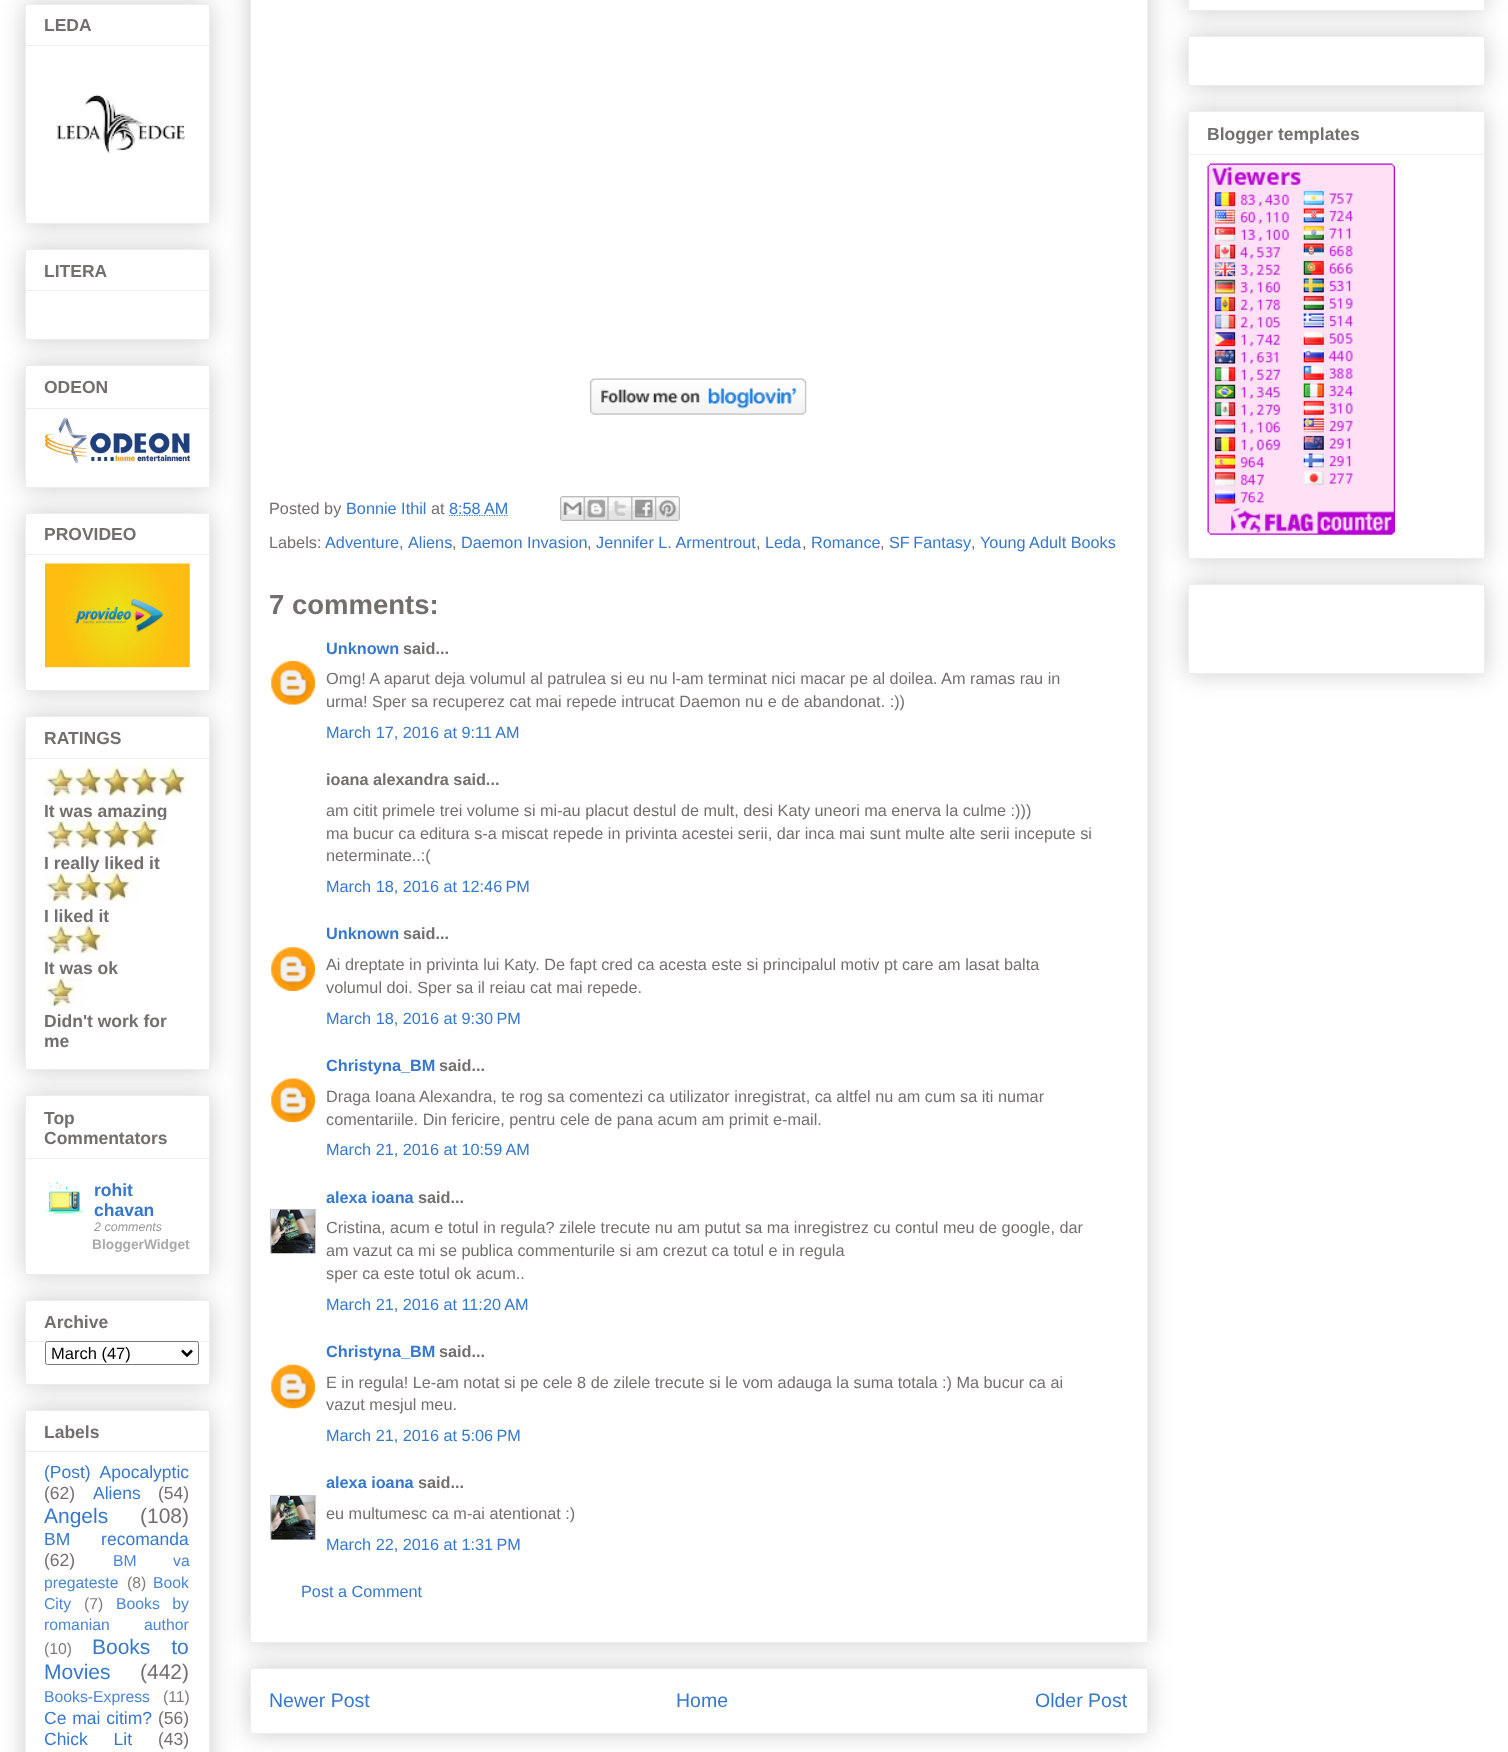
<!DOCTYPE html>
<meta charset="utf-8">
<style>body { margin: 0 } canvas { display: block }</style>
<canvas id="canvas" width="1508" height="1752"></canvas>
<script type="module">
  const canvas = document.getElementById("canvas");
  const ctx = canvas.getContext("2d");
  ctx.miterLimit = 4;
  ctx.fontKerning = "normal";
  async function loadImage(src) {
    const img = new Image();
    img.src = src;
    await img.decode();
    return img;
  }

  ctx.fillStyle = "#ffffff";
  ctx.fillRect(0, 0, 1508, 1752);
  ctx.fillStyle = "rgba(0, 0, 0, 0.2)";
  ctx.filter = "blur(12.5px)";
  ctx.beginPath();
  ctx.rect(25, 4, 185, 220);
  ctx.fill();
  ctx.filter = "none";
  ctx.fillStyle = "#ffffff";
  ctx.beginPath();
  ctx.rect(25.5, 4.5, 184, 219);
  ctx.fill();
  ctx.strokeStyle = "#eeeeee";
  ctx.stroke();
  ctx.font = "bold 17.5px Liberation Sans";
  ctx.fillStyle = "#746f6f";
  ctx.fillText("LEDA", 44, 31);
  ctx.fillStyle = "#eeeeee";
  ctx.fillRect(26, 45, 183, 1);
  ctx.drawImage(await loadImage("img1.png"), 56, 94, 130, 60);
  ctx.save();
  ctx.beginPath();
  ctx.moveTo(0, 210);
  ctx.lineTo(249, 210);
  ctx.lineTo(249, 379);
  ctx.lineTo(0, 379);
  ctx.closePath();
  ctx.moveTo(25, 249);
  ctx.lineTo(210, 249);
  ctx.lineTo(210, 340);
  ctx.lineTo(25, 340);
  ctx.closePath();
  ctx.clip("evenodd");
  ctx.fillStyle = "rgba(0, 0, 0, 0.2)";
  ctx.filter = "blur(12.5px)";
  ctx.beginPath();
  ctx.rect(25, 249, 185, 91);
  ctx.fill();
  ctx.filter = "none";
  ctx.restore();
  ctx.strokeRect(25.5, 249.5, 184, 90);
  ctx.fillStyle = "#746f6f";
  ctx.fillText("LITERA", 44, 277);
  ctx.fillStyle = "#eeeeee";
  ctx.fillRect(26, 290, 183, 1);
  ctx.fillStyle = "rgba(0, 0, 0, 0.2)";
  ctx.filter = "blur(12.5px)";
  ctx.beginPath();
  ctx.rect(25, 365, 185, 123);
  ctx.fill();
  ctx.filter = "none";
  ctx.fillStyle = "#ffffff";
  ctx.beginPath();
  ctx.rect(25.5, 365.5, 184, 122);
  ctx.fill();
  ctx.stroke();
  ctx.fillStyle = "#746f6f";
  ctx.fillText("ODEON", 44, 393);
  ctx.fillStyle = "#eeeeee";
  ctx.fillRect(26, 408, 183, 1);
  ctx.drawImage(await loadImage("img2.png"), 45, 417, 145, 47);
  ctx.save();
  ctx.beginPath();
  ctx.moveTo(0, 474);
  ctx.lineTo(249, 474);
  ctx.lineTo(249, 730);
  ctx.lineTo(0, 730);
  ctx.closePath();
  ctx.moveTo(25, 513);
  ctx.lineTo(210, 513);
  ctx.lineTo(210, 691);
  ctx.lineTo(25, 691);
  ctx.closePath();
  ctx.clip("evenodd");
  ctx.fillStyle = "rgba(0, 0, 0, 0.2)";
  ctx.filter = "blur(12.5px)";
  ctx.beginPath();
  ctx.rect(25, 513, 185, 178);
  ctx.fill();
  ctx.filter = "none";
  ctx.restore();
  ctx.strokeRect(25.5, 513.5, 184, 177);
  ctx.fillStyle = "#746f6f";
  ctx.fillText("PROVIDEO", 44, 540);
  ctx.fillStyle = "#eeeeee";
  ctx.fillRect(26, 554, 183, 1);
  ctx.drawImage(await loadImage("img3.png"), 45, 563, 145, 105);
  ctx.fillStyle = "rgba(0, 0, 0, 0.2)";
  ctx.filter = "blur(12.5px)";
  ctx.beginPath();
  ctx.rect(25, 716, 185, 354);
  ctx.fill();
  ctx.filter = "none";
  ctx.fillStyle = "#ffffff";
  ctx.beginPath();
  ctx.rect(25.5, 716.5, 184, 353);
  ctx.fill();
  ctx.stroke();
  ctx.fillStyle = "#746f6f";
  ctx.fillText("RATINGS", 44, 744);
  ctx.fillStyle = "#eeeeee";
  ctx.fillRect(26, 758, 183, 1);
  ctx.drawImage(await loadImage("img4.png"), 45, 767, 141, 29);
  ctx.fillStyle = "#746f6f";
  ctx.fillText("It was amazing", 44, 817);
  ctx.drawImage(await loadImage("img5.png"), 45, 819, 121, 30);
  ctx.fillText("I really liked it", 44, 869);
  ctx.drawImage(await loadImage("img6.png"), 45, 872, 95, 29);
  ctx.fillText("I liked it", 44, 922);
  ctx.drawImage(await loadImage("img7.png"), 45, 924, 61, 30);
  ctx.fillText("It was ok", 44, 974);
  ctx.drawImage(await loadImage("img8.png"), 45, 977, 39, 29);
  ctx.fillText("Didn't work for", 44, 1027);
  ctx.fillText("me", 44, 1047);
  ctx.save();
  ctx.beginPath();
  ctx.moveTo(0, 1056);
  ctx.lineTo(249, 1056);
  ctx.lineTo(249, 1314);
  ctx.lineTo(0, 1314);
  ctx.closePath();
  ctx.moveTo(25, 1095);
  ctx.lineTo(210, 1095);
  ctx.lineTo(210, 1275);
  ctx.lineTo(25, 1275);
  ctx.closePath();
  ctx.clip("evenodd");
  ctx.fillStyle = "rgba(0, 0, 0, 0.2)";
  ctx.filter = "blur(12.5px)";
  ctx.beginPath();
  ctx.rect(25, 1095, 185, 180);
  ctx.fill();
  ctx.filter = "none";
  ctx.restore();
  ctx.strokeRect(25.5, 1095.5, 184, 179);
  ctx.fillText("Top", 44, 1124);
  ctx.fillText("Commentators", 44, 1144);
  ctx.fillStyle = "#eeeeee";
  ctx.fillRect(26, 1158, 183, 1);
  ctx.drawImage(await loadImage("img9.png"), 45, 1182, 39, 32);
  ctx.fillStyle = "#3778cd";
  ctx.fillText("rohit", 94, 1196);
  ctx.fillText("chavan", 94, 1216);
  ctx.font = "italic 12.5px Liberation Sans";
  ctx.fillStyle = "#999999";
  ctx.fillText("2 comments", 94, 1231);
  ctx.font = "bold 13.75px Liberation Sans";
  ctx.fillStyle = "#aaaaaa";
  ctx.fillText("BloggerWidget", 92, 1249);
  ctx.save();
  ctx.beginPath();
  ctx.moveTo(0, 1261);
  ctx.lineTo(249, 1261);
  ctx.lineTo(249, 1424);
  ctx.lineTo(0, 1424);
  ctx.closePath();
  ctx.moveTo(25, 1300);
  ctx.lineTo(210, 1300);
  ctx.lineTo(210, 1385);
  ctx.lineTo(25, 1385);
  ctx.closePath();
  ctx.clip("evenodd");
  ctx.fillStyle = "rgba(0, 0, 0, 0.2)";
  ctx.filter = "blur(12.5px)";
  ctx.beginPath();
  ctx.rect(25, 1300, 185, 85);
  ctx.fill();
  ctx.filter = "none";
  ctx.restore();
  ctx.strokeRect(25.5, 1300.5, 184, 84);
  ctx.font = "bold 17.5px Liberation Sans";
  ctx.fillStyle = "#746f6f";
  ctx.fillText("Archive", 44, 1328);
  ctx.fillStyle = "#eeeeee";
  ctx.fillRect(26, 1341, 183, 1);
  ctx.fillStyle = "#ffffff";
  ctx.beginPath();
  ctx.roundRect(45.5, 1341.5, 153, 23, 2);
  ctx.fill();
  ctx.strokeStyle = "#767676";
  ctx.stroke();
  ctx.beginPath();
  ctx.moveTo(182, 1350.5);
  ctx.lineTo(187, 1355.5);
  ctx.lineTo(192, 1350.5);
  ctx.strokeStyle = "#000000";
  ctx.lineWidth = 2.5;
  ctx.stroke();
  ctx.font = "16.5px Liberation Sans";
  ctx.fillStyle = "#000000";
  ctx.fillText("March (47)", 51, 1359);
  ctx.save();
  ctx.beginPath();
  ctx.moveTo(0, 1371);
  ctx.lineTo(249, 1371);
  ctx.lineTo(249, 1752);
  ctx.lineTo(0, 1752);
  ctx.closePath();
  ctx.moveTo(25, 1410);
  ctx.lineTo(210, 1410);
  ctx.lineTo(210, 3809);
  ctx.lineTo(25, 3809);
  ctx.closePath();
  ctx.clip("evenodd");
  ctx.fillStyle = "rgba(0, 0, 0, 0.2)";
  ctx.filter = "blur(12.5px)";
  ctx.beginPath();
  ctx.rect(25, 1410, 185, 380);
  ctx.fill();
  ctx.filter = "none";
  ctx.restore();
  ctx.strokeStyle = "#eeeeee";
  ctx.lineWidth = 1;
  ctx.strokeRect(25.5, 1410.5, 184, 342);
  ctx.font = "bold 17.5px Liberation Sans";
  ctx.fillStyle = "#746f6f";
  ctx.fillText("Labels", 44, 1438);
  ctx.fillStyle = "#eeeeee";
  ctx.fillRect(26, 1451, 183, 1);
  ctx.wordSpacing = "5px";
  ctx.font = "17.5px Liberation Sans";
  ctx.fillStyle = "#3778cd";
  ctx.fillText("(Post) Apocalyptic", 44, 1478);
  ctx.wordSpacing = "0px";
  ctx.fillStyle = "#746f6f";
  ctx.fillText("(62)", 44, 1499);
  ctx.fillStyle = "#3778cd";
  ctx.fillText("Aliens", 93, 1499);
  ctx.fillStyle = "#746f6f";
  ctx.fillText("(54)", 158, 1499);
  ctx.font = "21px Liberation Sans";
  ctx.fillStyle = "#3778cd";
  ctx.fillText("Angels", 44, 1523);
  ctx.fillStyle = "#746f6f";
  ctx.fillText("(108)", 140, 1523);
  ctx.wordSpacing = "26px";
  ctx.font = "17.5px Liberation Sans";
  ctx.fillStyle = "#3778cd";
  ctx.fillText("BM recomanda", 44, 1545);
  ctx.wordSpacing = "0px";
  ctx.fillStyle = "#746f6f";
  ctx.fillText("(62)", 44, 1566);
  ctx.wordSpacing = "32px";
  ctx.font = "15.75px Liberation Sans";
  ctx.fillStyle = "#4b86d2";
  ctx.fillText("BM va", 113, 1566);
  ctx.wordSpacing = "0px";
  ctx.fillText("pregateste", 44, 1588);
  ctx.fillStyle = "#827d7d";
  ctx.fillText("(8)", 127, 1588);
  ctx.fillStyle = "#4b86d2";
  ctx.fillText("Book", 153, 1588);
  ctx.fillText("City", 44, 1609);
  ctx.fillStyle = "#827d7d";
  ctx.fillText("(7)", 84, 1609);
  ctx.wordSpacing = "8px";
  ctx.fillStyle = "#4b86d2";
  ctx.fillText("Books by", 116, 1609);
  ctx.wordSpacing = "30px";
  ctx.fillText("romanian author", 44, 1630);
  ctx.wordSpacing = "0px";
  ctx.fillStyle = "#827d7d";
  ctx.fillText("(10)", 44, 1654);
  ctx.wordSpacing = "15px";
  ctx.font = "21px Liberation Sans";
  ctx.fillStyle = "#3778cd";
  ctx.fillText("Books to", 92, 1654);
  ctx.wordSpacing = "0px";
  ctx.fillText("Movies", 44, 1679);
  ctx.fillStyle = "#746f6f";
  ctx.fillText("(442)", 140, 1679);
  ctx.font = "15.75px Liberation Sans";
  ctx.fillStyle = "#4b86d2";
  ctx.fillText("Books-Express", 44, 1702);
  ctx.fillStyle = "#827d7d";
  ctx.fillText("(11)", 163, 1702);
  ctx.wordSpacing = "1px";
  ctx.font = "17.5px Liberation Sans";
  ctx.fillStyle = "#3778cd";
  ctx.fillText("Ce mai citim?", 44, 1724);
  ctx.wordSpacing = "0px";
  ctx.fillStyle = "#746f6f";
  ctx.fillText("(56)", 158, 1724);
  ctx.wordSpacing = "21px";
  ctx.fillStyle = "#3778cd";
  ctx.fillText("Chick Lit", 44, 1745);
  ctx.wordSpacing = "0px";
  ctx.fillStyle = "#746f6f";
  ctx.fillText("(43)", 158, 1745);
  ctx.save();
  ctx.beginPath();
  ctx.moveTo(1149, 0);
  ctx.lineTo(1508, 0);
  ctx.lineTo(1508, 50);
  ctx.lineTo(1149, 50);
  ctx.closePath();
  ctx.moveTo(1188, -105);
  ctx.lineTo(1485, -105);
  ctx.lineTo(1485, 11);
  ctx.lineTo(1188, 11);
  ctx.closePath();
  ctx.clip("evenodd");
  ctx.fillStyle = "rgba(0, 0, 0, 0.2)";
  ctx.filter = "blur(12.5px)";
  ctx.beginPath();
  ctx.rect(1188, -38, 297, 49);
  ctx.fill();
  ctx.filter = "none";
  ctx.restore();
  ctx.strokeRect(1188.5, -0.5, 296, 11);
  ctx.fillStyle = "rgba(0, 0, 0, 0.2)";
  ctx.filter = "blur(12.5px)";
  ctx.beginPath();
  ctx.rect(1188, 36, 297, 50);
  ctx.fill();
  ctx.filter = "none";
  ctx.fillStyle = "#ffffff";
  ctx.beginPath();
  ctx.rect(1188.5, 36.5, 296, 49);
  ctx.fill();
  ctx.stroke();
  ctx.fillStyle = "rgba(0, 0, 0, 0.2)";
  ctx.filter = "blur(12.5px)";
  ctx.beginPath();
  ctx.rect(1188, 111, 297, 448);
  ctx.fill();
  ctx.filter = "none";
  ctx.fillStyle = "#ffffff";
  ctx.beginPath();
  ctx.rect(1188.5, 111.5, 296, 447);
  ctx.fill();
  ctx.stroke();
  ctx.font = "bold 17.5px Liberation Sans";
  ctx.fillStyle = "#746f6f";
  ctx.fillText("Blogger templates", 1207, 140);
  ctx.fillStyle = "#eeeeee";
  ctx.fillRect(1189, 154, 295, 1);
  ctx.drawImage(await loadImage("img10.png"), 1207, 163, 188, 372);
  ctx.fillStyle = "rgba(0, 0, 0, 0.2)";
  ctx.filter = "blur(12.5px)";
  ctx.beginPath();
  ctx.rect(1188, 584, 297, 90);
  ctx.fill();
  ctx.filter = "none";
  ctx.fillStyle = "#ffffff";
  ctx.beginPath();
  ctx.rect(1188.5, 584.5, 296, 89);
  ctx.fill();
  ctx.stroke();
  ctx.fillStyle = "rgba(0, 0, 0, 0.2)";
  ctx.filter = "blur(12.5px)";
  ctx.beginPath();
  ctx.rect(250, 1668, 898, 66);
  ctx.fill();
  ctx.filter = "none";
  ctx.fillStyle = "#ffffff";
  ctx.beginPath();
  ctx.rect(250.5, 1668.5, 897, 65);
  ctx.fill();
  ctx.stroke();
  ctx.fillStyle = "rgba(0, 0, 0, 0.2)";
  ctx.filter = "blur(12.5px)";
  ctx.beginPath();
  ctx.rect(250, -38, 898, 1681);
  ctx.fill();
  ctx.filter = "none";
  ctx.fillStyle = "#ffffff";
  ctx.beginPath();
  ctx.rect(250.5, -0.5, 897, 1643);
  ctx.fill();
  ctx.stroke();
  ctx.drawImage(await loadImage("img11.png"), 590, 378, 217, 37);
  ctx.font = "16.25px Liberation Sans";
  ctx.fillStyle = "#746f6f";
  ctx.fillText("Posted by", 269, 514);
  ctx.fillStyle = "#3778cd";
  ctx.fillText("Bonnie Ithil", 346, 514);
  ctx.fillStyle = "#746f6f";
  ctx.fillText("at", 431, 514);
  ctx.beginPath();
  ctx.moveTo(449, 515.5);
  ctx.lineTo(508.5, 515.5);
  ctx.strokeStyle = "#3778cd";
  ctx.lineWidth = 1.2;
  ctx.setLineDash([1.25, 1.25]);
  ctx.stroke();
  ctx.fillStyle = "#3778cd";
  ctx.fillText("8:58 AM", 449, 514);
  ctx.drawImage(await loadImage("img12.png"), 560, 496, 24, 25);
  ctx.drawImage(await loadImage("img13.png"), 583, 496, 25, 25);
  ctx.drawImage(await loadImage("img14.png"), 607, 496, 25, 25);
  ctx.drawImage(await loadImage("img15.png"), 631, 496, 24, 25);
  ctx.drawImage(await loadImage("img16.png"), 655, 496, 25, 25);
  ctx.fillStyle = "#746f6f";
  ctx.fillText("Labels:", 269, 548);
  ctx.fillStyle = "#3778cd";
  ctx.fillText("Adventure", 325, 548);
  ctx.fillStyle = "#746f6f";
  ctx.fillText(",", 399, 548);
  ctx.fillStyle = "#3778cd";
  ctx.fillText("Aliens", 408, 548);
  ctx.fillStyle = "#746f6f";
  ctx.fillText(",", 452, 548);
  ctx.fillStyle = "#3778cd";
  ctx.fillText("Daemon Invasion", 461, 548);
  ctx.fillStyle = "#746f6f";
  ctx.fillText(",", 587, 548);
  ctx.fillStyle = "#3778cd";
  ctx.fillText("Jennifer L. Armentrout", 596, 548);
  ctx.fillStyle = "#746f6f";
  ctx.fillText(",", 756, 548);
  ctx.fillStyle = "#3778cd";
  ctx.fillText("Leda", 765, 548);
  ctx.fillStyle = "#746f6f";
  ctx.fillText(",", 802, 548);
  ctx.fillStyle = "#3778cd";
  ctx.fillText("Romance", 811, 548);
  ctx.fillStyle = "#746f6f";
  ctx.fillText(",", 880, 548);
  ctx.wordSpacing = "-1px";
  ctx.fillStyle = "#3778cd";
  ctx.fillText("SF Fantasy", 889, 548);
  ctx.wordSpacing = "0px";
  ctx.fillStyle = "#746f6f";
  ctx.fillText(",", 971, 548);
  ctx.fillStyle = "#3778cd";
  ctx.fillText("Young Adult Books", 980, 548);
  ctx.font = "bold 27.5px Liberation Sans";
  ctx.fillStyle = "#746f6f";
  ctx.fillText("7 comments:", 269, 614);
  ctx.font = "bold 16.25px Liberation Sans";
  ctx.fillStyle = "#3778cd";
  ctx.fillText("Unknown", 326, 654);
  ctx.fillStyle = "#746f6f";
  ctx.fillText("said...", 403, 654);
  ctx.drawImage(await loadImage("img17.png"), 271, 661, 44, 44);
  ctx.font = "16.25px Liberation Sans";
  ctx.fillText("Omg! A aparut deja volumul al patrulea si eu nu l-am terminat nici macar pe al doilea. Am ramas rau in", 326, 684);
  ctx.fillText("urma! Sper sa recuperez cat mai repede intrucat Daemon nu e de abandonat. :))", 326, 707);
  ctx.fillStyle = "#3778cd";
  ctx.fillText("March 17, 2016 at 9:11 AM", 326, 738);
  ctx.font = "bold 16.25px Liberation Sans";
  ctx.fillStyle = "#746f6f";
  ctx.fillText("ioana alexandra said...", 326, 785);
  ctx.font = "16.25px Liberation Sans";
  ctx.fillText("am citit primele trei volume si mi-au placut destul de mult, desi Katy uneori ma enerva la culme :)))", 326, 816);
  ctx.fillText("ma bucur ca editura s-a miscat repede in privinta acestei serii, dar inca mai sunt multe alte serii incepute si", 326, 839);
  ctx.fillText("neterminate..:(", 326, 861);
  ctx.fillStyle = "#3778cd";
  ctx.fillText("March 18, 2016 at 12:46 PM", 326, 892);
  ctx.font = "bold 16.25px Liberation Sans";
  ctx.fillText("Unknown", 326, 939);
  ctx.fillStyle = "#746f6f";
  ctx.fillText("said...", 403, 939);
  ctx.drawImage(await loadImage("img18.png"), 271, 947, 44, 44);
  ctx.font = "16.25px Liberation Sans";
  ctx.fillText("Ai dreptate in privinta lui Katy. De fapt cred ca acesta este si principalul motiv pt care am lasat balta", 326, 970);
  ctx.fillText("volumul doi. Sper sa il reiau cat mai repede.", 326, 993);
  ctx.fillStyle = "#3778cd";
  ctx.fillText("March 18, 2016 at 9:30 PM", 326, 1024);
  ctx.font = "bold 16.25px Liberation Sans";
  ctx.fillText("Christyna_BM", 326, 1071);
  ctx.fillStyle = "#746f6f";
  ctx.fillText("said...", 439, 1071);
  ctx.drawImage(await loadImage("img19.png"), 271, 1078, 44, 45);
  ctx.font = "16.25px Liberation Sans";
  ctx.fillText("Draga Ioana Alexandra, te rog sa comentezi ca utilizator inregistrat, ca altfel nu am cum sa iti numar", 326, 1102);
  ctx.fillText("comentariile. Din fericire, pentru cele de pana acum am primit e-mail.", 326, 1125);
  ctx.fillStyle = "#3778cd";
  ctx.fillText("March 21, 2016 at 10:59 AM", 326, 1155);
  ctx.font = "bold 16.25px Liberation Sans";
  ctx.fillText("alexa ioana", 326, 1203);
  ctx.fillStyle = "#746f6f";
  ctx.fillText("said...", 418, 1203);
  ctx.save();
  ctx.beginPath();
  ctx.rect(270, 1209, 46, 45);
  ctx.clip();
  ctx.strokeStyle = "#cccccc";
  ctx.lineWidth = 1;
  ctx.setLineDash([]);
  ctx.strokeRect(270.5, 1209.5, 45, 45);
  ctx.restore();
  ctx.drawImage(await loadImage("img20.png"), 271, 1209, 44, 45);
  ctx.font = "16.25px Liberation Sans";
  ctx.fillText("Cristina, acum e totul in regula? zilele trecute nu am putut sa ma inregistrez cu contul meu de google, dar", 326, 1233);
  ctx.fillText("am vazut ca mi se publica commenturile si am crezut ca totul e in regula", 326, 1256);
  ctx.fillText("sper ca este totul ok acum..", 326, 1279);
  ctx.fillStyle = "#3778cd";
  ctx.fillText("March 21, 2016 at 11:20 AM", 326, 1310);
  ctx.font = "bold 16.25px Liberation Sans";
  ctx.fillText("Christyna_BM", 326, 1357);
  ctx.fillStyle = "#746f6f";
  ctx.fillText("said...", 439, 1357);
  ctx.drawImage(await loadImage("img21.png"), 271, 1364, 44, 45);
  ctx.font = "16.25px Liberation Sans";
  ctx.fillText("E in regula! Le-am notat si pe cele 8 de zilele trecute si le vom adauga la suma totala :) Ma bucur ca ai", 326, 1388);
  ctx.fillText("vazut mesjul meu.", 326, 1410);
  ctx.fillStyle = "#3778cd";
  ctx.fillText("March 21, 2016 at 5:06 PM", 326, 1441);
  ctx.font = "bold 16.25px Liberation Sans";
  ctx.fillText("alexa ioana", 326, 1488);
  ctx.fillStyle = "#746f6f";
  ctx.fillText("said...", 418, 1488);
  ctx.save();
  ctx.beginPath();
  ctx.rect(270, 1495, 46, 45);
  ctx.clip();
  ctx.strokeStyle = "#cccccc";
  ctx.lineWidth = 1;
  ctx.setLineDash([]);
  ctx.strokeRect(270.5, 1495.5, 45, 45);
  ctx.restore();
  ctx.drawImage(await loadImage("img22.png"), 271, 1496, 44, 44);
  ctx.font = "16.25px Liberation Sans";
  ctx.fillText("eu multumesc ca m-ai atentionat :)", 326, 1519);
  ctx.fillStyle = "#3778cd";
  ctx.fillText("March 22, 2016 at 1:31 PM", 326, 1550);
  ctx.fillText("Post a Comment", 301, 1597);
  ctx.font = "19.5px Liberation Sans";
  ctx.fillText("Newer Post", 269, 1707);
  ctx.fillText("Home", 676, 1707);
  ctx.fillText("Older Post", 1035, 1707);
</script>
